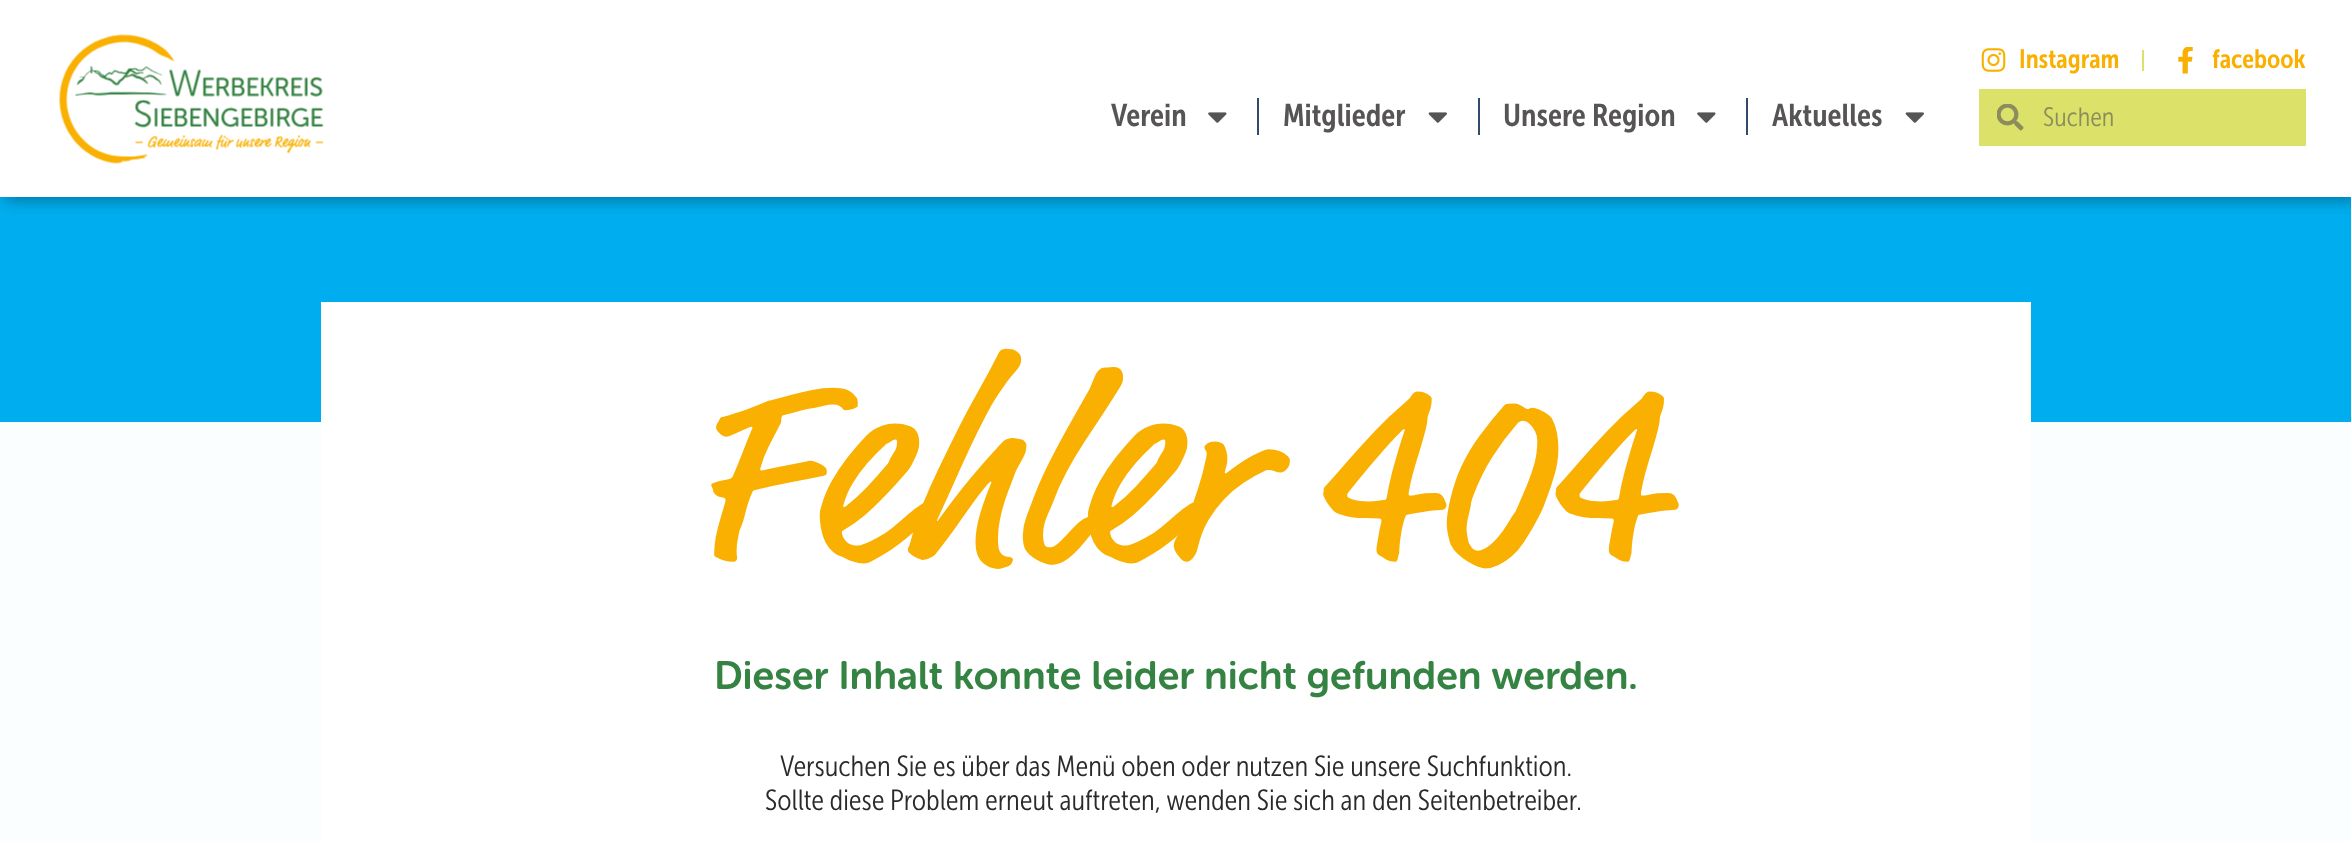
<!DOCTYPE html>
<meta charset="utf-8">
<style>body { margin: 0 } canvas { display: block }</style>
<canvas id="canvas" width="2351" height="841"></canvas>
<script type="module">
  const canvas = document.getElementById("canvas");
  const ctx = canvas.getContext("2d");
  ctx.miterLimit = 4;
  ctx.fontKerning = "normal";
  async function loadImage(src) {
    const img = new Image();
    img.src = src;
    await img.decode();
    return img;
  }

  ctx.fillStyle = "#fbfeff";
  ctx.fillRect(0, 0, 2351, 841);
  ctx.fillStyle = "#00aeef";
  ctx.fillRect(0, 197, 2351, 225);
  ctx.fillStyle = "rgba(0, 0, 0, 0.3)";
  ctx.filter = "blur(7.5px)";
  ctx.beginPath();
  ctx.rect(5, 5, 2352, 196);
  ctx.fill();
  ctx.filter = "none";
  ctx.fillStyle = "#ffffff";
  ctx.fillRect(0, 0, 2351, 197);
  ctx.drawImage(await loadImage("img1.png"), 59, 34, 265, 130);
  ctx.drawImage(await loadImage("img2.png"), 1981, 48, 25, 24);
  ctx.font = "600 26.5px 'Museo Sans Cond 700'";
  ctx.fillStyle = "#f9b000";
  ctx.fillText("Instagram", 2019, 68);
  ctx.fillStyle = "#dce169";
  ctx.fillRect(2142, 50, 2, 21);
  ctx.drawImage(await loadImage("img3.png"), 2178, 47, 15, 27);
  ctx.fillStyle = "#f9b000";
  ctx.fillText("facebook", 2212, 68);
  ctx.font = "600 31.5px 'Museo Sans Cond 700'";
  ctx.fillStyle = "#565454";
  ctx.fillText("Verein", 1111, 126);
  ctx.drawImage(await loadImage("img4.png"), 1208, 112, 19, 11);
  ctx.fillStyle = "#324a6d";
  ctx.fillRect(1257, 98, 2, 37);
  ctx.fillStyle = "#565454";
  ctx.fillText("Mitglieder", 1283, 126);
  ctx.drawImage(await loadImage("img5.png"), 1428, 112, 19, 11);
  ctx.fillStyle = "#324a6d";
  ctx.fillRect(1478, 98, 2, 37);
  ctx.fillStyle = "#565454";
  ctx.fillText("Unsere Region", 1503, 126);
  ctx.drawImage(await loadImage("img4.png"), 1697, 112, 19, 11);
  ctx.fillStyle = "#324a6d";
  ctx.fillRect(1746, 98, 2, 37);
  ctx.fillStyle = "#565454";
  ctx.fillText("Aktuelles", 1772, 126);
  ctx.drawImage(await loadImage("img5.png"), 1905, 112, 19, 11);
  ctx.fillStyle = "#dce169";
  ctx.fillRect(1979, 89, 327, 57);
  ctx.drawImage(await loadImage("img6.png"), 1997, 104, 27, 27);
  ctx.font = "300 26.5px 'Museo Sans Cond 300'";
  ctx.fillStyle = "#8c8c5c";
  ctx.fillText("Suchen", 2043, 126);
  ctx.fillStyle = "#ffffff";
  ctx.fillRect(321, 302, 1710, 539);
  ctx.font = "264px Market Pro";
  ctx.fillStyle = "#f9b000";
  ctx.fillText("Fehler 404", 688, 560);
  ctx.font = "600 39.6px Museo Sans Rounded";
  ctx.fillStyle = "#348342";
  ctx.fillText("Dieser Inhalt konnte leider nicht gefunden werden.", 714, 689);
  ctx.font = "300 29.05px 'Museo Sans Cond 300'";
  ctx.fillStyle = "#2b2a29";
  ctx.fillText("Versuchen Sie es über das Menü oben oder nutzen Sie unsere Suchfunktion.", 780, 776);
  ctx.fillText("Sollte diese Problem erneut auftreten, wenden Sie sich an den Seitenbetreiber.", 765, 810);
</script>
